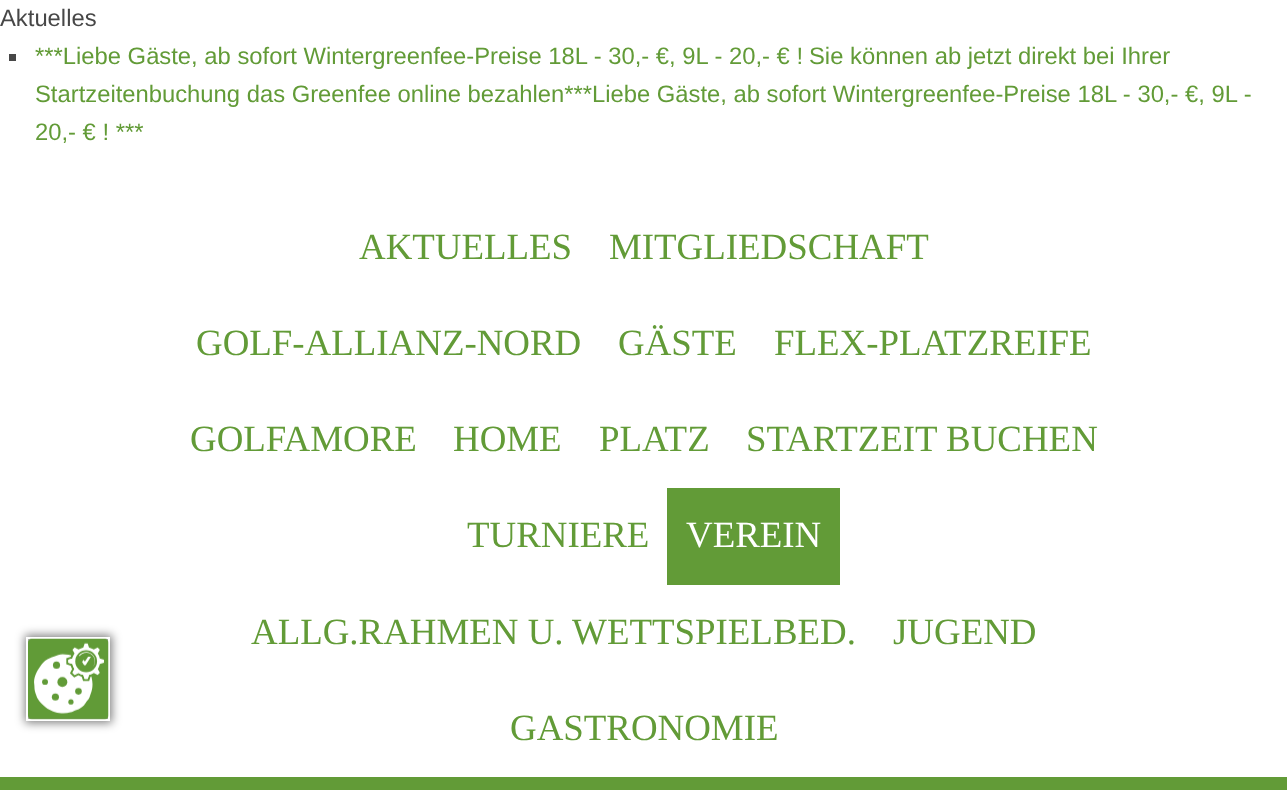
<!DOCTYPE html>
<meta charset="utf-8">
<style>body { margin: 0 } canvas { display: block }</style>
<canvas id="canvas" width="1287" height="790"></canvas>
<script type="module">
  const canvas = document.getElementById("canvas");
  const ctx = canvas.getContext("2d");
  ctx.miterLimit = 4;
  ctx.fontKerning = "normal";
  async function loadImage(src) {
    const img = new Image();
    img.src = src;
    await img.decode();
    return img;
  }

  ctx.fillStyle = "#ffffff";
  ctx.fillRect(0, 0, 1287, 790);
  ctx.font = "23.8px Liberation Sans";
  ctx.fillStyle = "#474747";
  ctx.fillText("Aktuelles", 0, 26);
  ctx.fillRect(9, 54, 7, 7);
  ctx.fillStyle = "#629b37";
  ctx.fillText("***Liebe Gäste, ab sofort Wintergreenfee-Preise 18L - 30,- €, 9L - 20,- € !", 35, 64);
  ctx.fillText("Sie können ab jetzt direkt bei Ihrer", 809, 64);
  ctx.fillText("Startzeitenbuchung das Greenfee online bezahlen***Liebe Gäste, ab sofort Wintergreenfee-Preise 18L - 30,- €, 9L -", 35, 102);
  ctx.fillText("20,- € ! ***", 35, 140);
  ctx.fillStyle = "rgba(0, 0, 0, 0.5)";
  ctx.filter = "blur(5px)";
  ctx.beginPath();
  ctx.rect(25, 635, 87, 88);
  ctx.fill();
  ctx.filter = "none";
  ctx.strokeStyle = "#ffffff";
  ctx.lineWidth = 2;
  ctx.strokeRect(27, 638, 82, 82);
  ctx.drawImage(await loadImage("img1.png"), 28, 638, 81, 82);
  ctx.font = "36.9px Liberation Serif";
  ctx.fillStyle = "#629b37";
  ctx.fillText("AKTUELLES", 359, 259);
  ctx.fillText("MITGLIEDSCHAFT", 609, 259);
  ctx.fillText("GOLF-ALLIANZ-NORD", 196, 355);
  ctx.fillText("GÄSTE", 618, 355);
  ctx.fillText("FLEX-PLATZREIFE", 774, 355);
  ctx.fillText("GOLFAMORE", 190, 451);
  ctx.fillText("HOME", 453, 451);
  ctx.fillText("PLATZ", 599, 451);
  ctx.fillText("STARTZEIT BUCHEN", 746, 451);
  ctx.fillText("TURNIERE", 467, 547);
  ctx.fillRect(667, 488, 173, 97);
  ctx.fillStyle = "#ffffff";
  ctx.fillText("VEREIN", 686, 547);
  ctx.fillStyle = "#629b37";
  ctx.fillText("ALLG.RAHMEN U. WETTSPIELBED.", 251, 644);
  ctx.fillText("JUGEND", 893, 644);
  ctx.fillText("GASTRONOMIE", 510, 740);
  ctx.fillRect(0, 777, 1287, 13);
</script>
